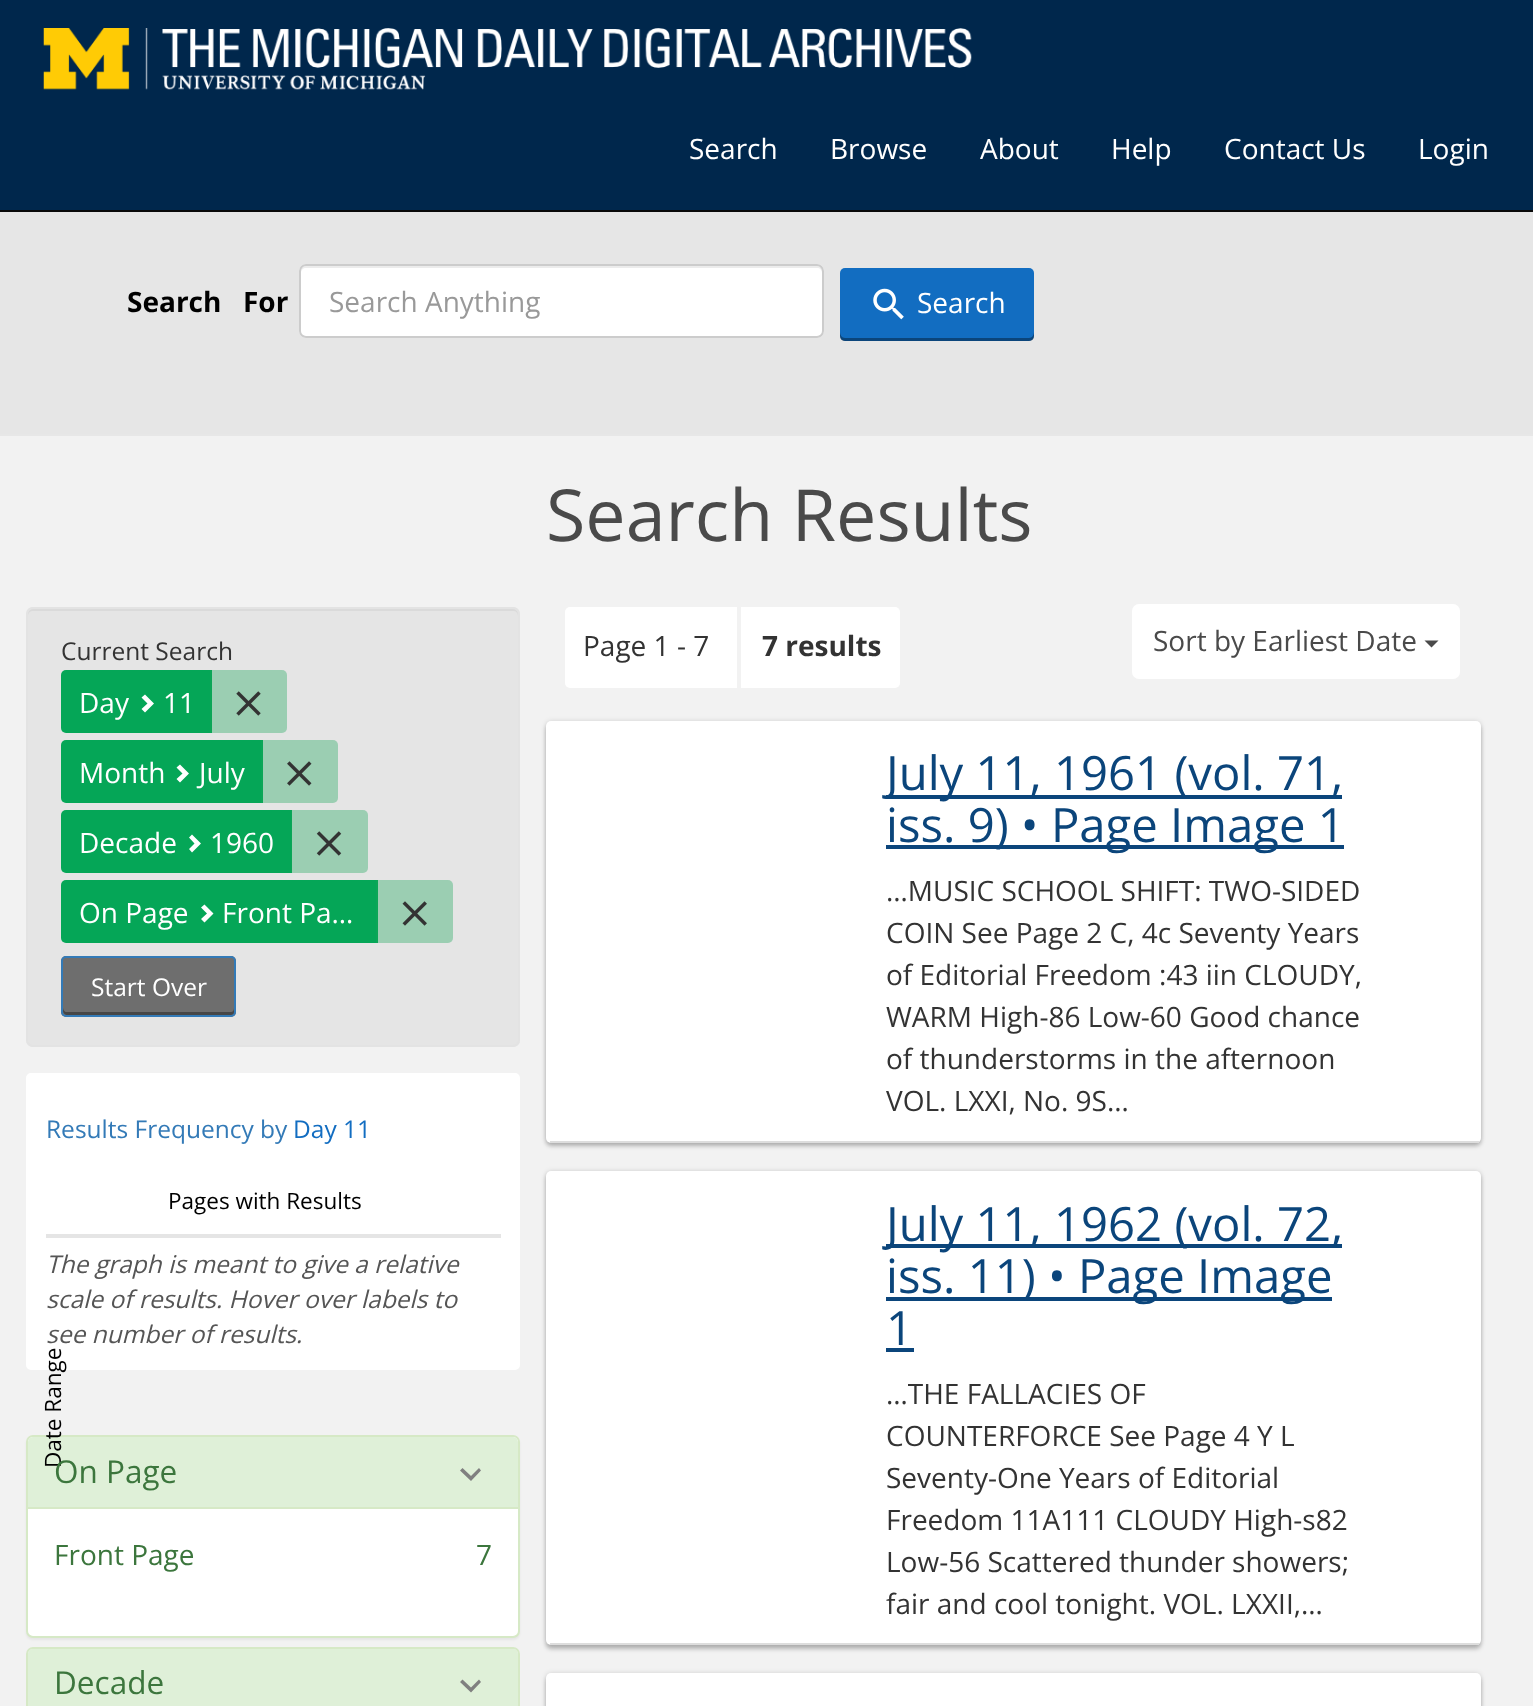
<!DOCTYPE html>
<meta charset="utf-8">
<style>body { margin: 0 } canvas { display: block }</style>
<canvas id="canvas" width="1533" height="1706"></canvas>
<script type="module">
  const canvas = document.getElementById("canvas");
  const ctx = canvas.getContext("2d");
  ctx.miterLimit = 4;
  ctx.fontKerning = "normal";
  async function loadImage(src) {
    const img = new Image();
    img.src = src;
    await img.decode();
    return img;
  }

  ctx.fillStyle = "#f2f2f2";
  ctx.fillRect(0, 0, 1533, 1706);
  ctx.fillStyle = "#00274c";
  ctx.fillRect(0, 0, 1533, 210);
  ctx.fillStyle = "#090909";
  ctx.fillRect(0, 210, 1533, 2);
  ctx.drawImage(await loadImage("img1.png"), 43, 28, 929, 62);
  ctx.font = "28px Open Sans";
  ctx.fillStyle = "#ffffff";
  ctx.fillText("Search", 689, 159);
  ctx.fillText("Browse", 830, 159);
  ctx.fillText("About", 980, 159);
  ctx.fillText("Help", 1111, 159);
  ctx.fillText("Contact Us", 1224, 159);
  ctx.fillText("Login", 1418, 159);
  ctx.fillStyle = "#e7e7e7";
  ctx.fillRect(0, 434, 1533, 2);
  ctx.fillStyle = "#e6e6e6";
  ctx.fillRect(0, 212, 1533, 222);
  ctx.font = "bold 28px Open Sans";
  ctx.fillStyle = "#000000";
  ctx.fillText("Search", 127, 312);
  ctx.fillText("For", 243, 312);
  ctx.fillStyle = "#ffffff";
  ctx.beginPath();
  ctx.roundRect(299, 264, 525, 74, 7);
  ctx.fill();
  ctx.fillStyle = "#ececec";
  ctx.beginPath();
  ctx.moveTo(306, 268);
  ctx.lineTo(817, 268);
  ctx.bezierCurveTo(820, 268, 822, 270, 822, 273);
  ctx.lineTo(822, 332);
  ctx.lineTo(822, 335);
  ctx.bezierCurveTo(822, 334, 823, 332, 823, 331);
  ctx.lineTo(823, 271);
  ctx.bezierCurveTo(823, 268, 821, 266, 818, 266);
  ctx.lineTo(306, 266);
  ctx.bezierCurveTo(303, 266, 301, 268, 301, 271);
  ctx.lineTo(301, 273);
  ctx.bezierCurveTo(301, 270, 303, 268, 306, 268);
  ctx.closePath();
  ctx.fill();
  ctx.beginPath();
  ctx.roundRect(300, 265, 523, 72, 6);
  ctx.strokeStyle = "#cccccc";
  ctx.lineWidth = 2;
  ctx.stroke();
  ctx.font = "28px Open Sans";
  ctx.fillStyle = "#999999";
  ctx.fillText("Search Anything", 329, 312);
  ctx.fillStyle = "#126dc1";
  ctx.beginPath();
  ctx.roundRect(840, 268, 194, 73, 5);
  ctx.fill();
  ctx.fillStyle = "rgba(0, 0, 0, 0.36)";
  ctx.beginPath();
  ctx.moveTo(840, 332);
  ctx.lineTo(840, 336);
  ctx.bezierCurveTo(840, 339, 842, 341, 845, 341);
  ctx.lineTo(1029, 341);
  ctx.bezierCurveTo(1032, 341, 1034, 339, 1034, 336);
  ctx.lineTo(1034, 332);
  ctx.bezierCurveTo(1034, 335, 1032, 338, 1029, 338);
  ctx.lineTo(845, 338);
  ctx.bezierCurveTo(842, 338, 840, 335, 840, 332);
  ctx.closePath();
  ctx.fill();
  ctx.drawImage(await loadImage("img2.png"), 873, 288, 31, 32);
  ctx.fillStyle = "#ffffff";
  ctx.fillText("Search", 917, 313);
  ctx.font = "71.75px Open Sans";
  ctx.fillStyle = "#4a4a4a";
  ctx.fillText("Search Results", 546, 541);
  ctx.fillStyle = "#e5e5e5";
  ctx.beginPath();
  ctx.roundRect(26, 607, 494, 440, 7);
  ctx.fill();
  ctx.fillStyle = "#dadada";
  ctx.beginPath();
  ctx.moveTo(33, 611);
  ctx.lineTo(513, 611);
  ctx.bezierCurveTo(516, 611, 518, 613, 518, 616);
  ctx.lineTo(518, 614);
  ctx.bezierCurveTo(518, 611, 516, 609, 513, 609);
  ctx.lineTo(33, 609);
  ctx.bezierCurveTo(30, 609, 28, 611, 28, 614);
  ctx.lineTo(28, 616);
  ctx.bezierCurveTo(28, 613, 30, 611, 33, 611);
  ctx.closePath();
  ctx.fill();
  ctx.beginPath();
  ctx.roundRect(27, 608, 492, 438, 6);
  ctx.strokeStyle = "#e3e3e3";
  ctx.stroke();
  ctx.font = "24.5px Open Sans";
  ctx.fillStyle = "#333333";
  ctx.fillText("Current Search", 61, 660);
  ctx.fillStyle = "#05a657";
  ctx.beginPath();
  ctx.roundRect(61, 670, 151, 63, [5, 0, 0, 5]);
  ctx.fill();
  ctx.font = "28px Open Sans";
  ctx.fillStyle = "#ffffff";
  ctx.fillText("Day", 79, 713);
  ctx.beginPath();
  ctx.moveTo(154, 703.5);
  ctx.lineTo(145, 712.5);
  ctx.lineTo(141.5, 709);
  ctx.lineTo(147.5, 703.5);
  ctx.lineTo(141.5, 697.5);
  ctx.lineTo(145, 694.5);
  ctx.closePath();
  ctx.fill();
  ctx.fillText("11", 163, 713);
  ctx.fillStyle = "rgba(26, 165, 90, 0.36)";
  ctx.beginPath();
  ctx.roundRect(210, 670, 77, 63, [0, 5, 5, 0]);
  ctx.fill();
  ctx.drawImage(await loadImage("img3.png"), 236, 691, 25, 25);
  ctx.fillStyle = "#05a657";
  ctx.beginPath();
  ctx.roundRect(61, 740, 202, 63, [5, 0, 0, 5]);
  ctx.fill();
  ctx.fillStyle = "#ffffff";
  ctx.fillText("Month", 79, 783);
  ctx.beginPath();
  ctx.moveTo(189, 773.5);
  ctx.lineTo(180, 782.5);
  ctx.lineTo(176.5, 779);
  ctx.lineTo(182.5, 773.5);
  ctx.lineTo(176.5, 767.5);
  ctx.lineTo(180, 764.5);
  ctx.closePath();
  ctx.fill();
  ctx.fillText("July", 199, 783);
  ctx.fillStyle = "rgba(26, 165, 90, 0.36)";
  ctx.beginPath();
  ctx.roundRect(261, 740, 77, 63, [0, 5, 5, 0]);
  ctx.fill();
  ctx.drawImage(await loadImage("img4.png"), 287, 761, 25, 25);
  ctx.fillStyle = "#05a657";
  ctx.beginPath();
  ctx.roundRect(61, 810, 231, 63, [5, 0, 0, 5]);
  ctx.fill();
  ctx.fillStyle = "#ffffff";
  ctx.fillText("Decade", 79, 853);
  ctx.beginPath();
  ctx.moveTo(201, 843.5);
  ctx.lineTo(192, 852.5);
  ctx.lineTo(189, 849);
  ctx.lineTo(194.5, 843.5);
  ctx.lineTo(189, 837.5);
  ctx.lineTo(192, 834.5);
  ctx.closePath();
  ctx.fill();
  ctx.fillText("1960", 210, 853);
  ctx.fillStyle = "rgba(26, 165, 90, 0.36)";
  ctx.beginPath();
  ctx.roundRect(291, 810, 77, 63, [0, 5, 5, 0]);
  ctx.fill();
  ctx.drawImage(await loadImage("img5.png"), 316, 831, 26, 25);
  ctx.fillStyle = "#05a657";
  ctx.beginPath();
  ctx.roundRect(61, 880, 317, 63, [5, 0, 0, 5]);
  ctx.fill();
  ctx.fillStyle = "#ffffff";
  ctx.fillText("On Page", 79, 923);
  ctx.beginPath();
  ctx.moveTo(213.5, 913.5);
  ctx.lineTo(204.5, 922.5);
  ctx.lineTo(201, 919);
  ctx.lineTo(207, 913.5);
  ctx.lineTo(201, 907.5);
  ctx.lineTo(204.5, 904.5);
  ctx.closePath();
  ctx.fill();
  ctx.fillText("Front Pa…", 222, 923);
  ctx.fillStyle = "rgba(26, 165, 90, 0.36)";
  ctx.beginPath();
  ctx.roundRect(376, 880, 77, 63, [0, 5, 5, 0]);
  ctx.fill();
  ctx.drawImage(await loadImage("img6.png"), 402, 901, 25, 25);
  ctx.fillStyle = "#6e6e6e";
  ctx.beginPath();
  ctx.roundRect(61, 956, 175, 61, 5);
  ctx.fill();
  ctx.fillStyle = "#464646";
  ctx.beginPath();
  ctx.moveTo(63, 1008);
  ctx.lineTo(63, 1011);
  ctx.bezierCurveTo(63, 1013, 65, 1015, 67, 1015);
  ctx.lineTo(231, 1015);
  ctx.bezierCurveTo(233, 1015, 235, 1013, 235, 1011);
  ctx.lineTo(235, 961);
  ctx.bezierCurveTo(235, 960, 235, 959, 234, 958);
  ctx.lineTo(234, 1008);
  ctx.bezierCurveTo(234, 1010, 233, 1012, 231, 1012);
  ctx.lineTo(66, 1012);
  ctx.bezierCurveTo(65, 1012, 63, 1010, 63, 1008);
  ctx.closePath();
  ctx.fill();
  ctx.beginPath();
  ctx.roundRect(62, 957, 173, 59, 4);
  ctx.strokeStyle = "#337ab7";
  ctx.stroke();
  ctx.font = "24.5px Open Sans";
  ctx.fillStyle = "#ffffff";
  ctx.fillText("Start Over", 91, 996);
  ctx.beginPath();
  ctx.roundRect(27, 1074, 492, 295, 4);
  ctx.fill();
  ctx.strokeStyle = "#ffffff";
  ctx.stroke();
  ctx.fillStyle = "#337ab7";
  ctx.fillText("Results Frequency by", 46, 1138);
  ctx.fillStyle = "#126dc1";
  ctx.fillText("Day 11", 293, 1138);
  ctx.font = "22.5px Open Sans";
  ctx.fillStyle = "#000000";
  ctx.fillText("Pages with Results", 168, 1209);
  ctx.fillStyle = "rgba(0, 0, 0, 0.05)";
  ctx.filter = "blur(1px)";
  ctx.beginPath();
  ctx.roundRect(26, 1437, 494, 203, 7);
  ctx.fill();
  ctx.filter = "none";
  ctx.fillStyle = "#ffffff";
  ctx.beginPath();
  ctx.roundRect(27, 1436, 492, 201, 6);
  ctx.fill();
  ctx.strokeStyle = "#d6e9c6";
  ctx.stroke();
  ctx.fillStyle = "#dff0d8";
  ctx.beginPath();
  ctx.roundRect(28, 1437, 490, 70, [5, 5, 0, 0]);
  ctx.fill();
  ctx.fillStyle = "#000000";
  ctx.save();
  ctx.translate(61, 1468);
  ctx.rotate(-90 * Math.PI / 180);
  ctx.fillText("Date Range", 0, 0);
  ctx.restore();
  ctx.fillStyle = "#e5e5e5";
  ctx.fillRect(46, 1234, 455, 4);
  ctx.font = "italic 24.5px Open Sans";
  ctx.fillStyle = "#555555";
  ctx.fillText("The graph is meant to give a relative", 46, 1273);
  ctx.fillText("scale of results. Hover over labels to", 46, 1308);
  ctx.fillText("see number of results.", 46, 1343);
  ctx.font = "31.5px Open Sans";
  ctx.fillStyle = "#3c763d";
  ctx.fillText("On Page", 54, 1483);
  ctx.fillStyle = "#808080";
  ctx.beginPath();
  ctx.moveTo(462.5, 1468);
  ctx.lineTo(471, 1476);
  ctx.lineTo(479, 1468);
  ctx.lineTo(481, 1470.5);
  ctx.lineTo(471, 1481);
  ctx.lineTo(460, 1470.5);
  ctx.closePath();
  ctx.fill();
  ctx.fillStyle = "#d6e9c6";
  ctx.fillRect(28, 1507, 490, 2);
  ctx.font = "28px Open Sans";
  ctx.fillStyle = "#3c763d";
  ctx.fillText("Front Page", 54, 1565);
  ctx.fillText("7", 476, 1565);
  ctx.beginPath();
  ctx.roundRect(27, 1648, 492, 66, 6);
  ctx.stroke();
  ctx.fillStyle = "#dff0d8";
  ctx.beginPath();
  ctx.moveTo(33, 1649);
  ctx.lineTo(513, 1649);
  ctx.bezierCurveTo(516, 1649, 518, 1651, 518, 1654);
  ctx.lineTo(518, 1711);
  ctx.lineTo(28, 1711);
  ctx.lineTo(28, 1654);
  ctx.bezierCurveTo(28, 1651, 30, 1649, 33, 1649);
  ctx.closePath();
  ctx.fill();
  ctx.font = "31.5px Open Sans";
  ctx.fillStyle = "#3c763d";
  ctx.fillText("Decade", 54, 1694);
  ctx.fillStyle = "#808080";
  ctx.beginPath();
  ctx.moveTo(462.5, 1679.5);
  ctx.lineTo(471, 1687.5);
  ctx.lineTo(479, 1679.5);
  ctx.lineTo(481, 1682);
  ctx.lineTo(471, 1692.5);
  ctx.lineTo(460, 1682);
  ctx.closePath();
  ctx.fill();
  ctx.fillStyle = "#ffffff";
  ctx.beginPath();
  ctx.roundRect(565, 607, 335, 81, 5);
  ctx.fill();
  ctx.fillStyle = "#f2f2f2";
  ctx.fillRect(737, 607, 4, 81);
  ctx.font = "28px Open Sans";
  ctx.fillStyle = "#333333";
  ctx.fillText("Page 1 - 7", 583, 656);
  ctx.font = "bold 28px Open Sans";
  ctx.fillText("7 results", 762, 656);
  ctx.fillStyle = "#ffffff";
  ctx.beginPath();
  ctx.roundRect(1132, 604, 328, 75, 7);
  ctx.fill();
  ctx.font = "28px Open Sans";
  ctx.fillStyle = "#4a4a4a";
  ctx.fillText("Sort by Earliest Date", 1153, 651);
  ctx.beginPath();
  ctx.moveTo(1424.5, 640.5);
  ctx.lineTo(1438.5, 640.5);
  ctx.lineTo(1431.5, 647.5);
  ctx.closePath();
  ctx.fill();
  ctx.fillStyle = "rgba(0, 0, 0, 0.12)";
  ctx.filter = "blur(2.5px)";
  ctx.beginPath();
  ctx.roundRect(546, 721, 935, 422, 5);
  ctx.fill();
  ctx.filter = "none";
  ctx.fillStyle = "rgba(0, 0, 0, 0.24)";
  ctx.filter = "blur(2px)";
  ctx.beginPath();
  ctx.roundRect(546, 725, 935, 421, 5);
  ctx.fill();
  ctx.filter = "none";
  ctx.fillStyle = "#ffffff";
  ctx.beginPath();
  ctx.roundRect(546, 721, 935, 422, 5);
  ctx.fill();
  ctx.fillStyle = "#dddddd";
  ctx.fillRect(550, 1141, 929, 2);
  ctx.fillStyle = "#0b457b";
  ctx.fillRect(886, 795, 456, 4);
  ctx.font = "47.25px Open Sans";
  ctx.fillText("July 11, 1961 (vol. 71,", 886, 790);
  ctx.fillRect(886, 845, 458, 4);
  ctx.fillText("iss. 9) • Page Image 1", 886, 842);
  ctx.font = "28px Open Sans";
  ctx.fillStyle = "#333333";
  ctx.fillText("…MUSIC SCHOOL SHIFT: TWO-SIDED", 886, 901);
  ctx.fillText("COIN See Page 2 C, 4c Seventy Years", 886, 943);
  ctx.fillText("of Editorial Freedom :43 iin CLOUDY,", 886, 985);
  ctx.fillText("WARM High-86 Low-60 Good chance", 886, 1027);
  ctx.fillText("of thunderstorms in the afternoon", 886, 1069);
  ctx.fillText("VOL. LXXI, No. 9S…", 886, 1111);
  ctx.fillStyle = "rgba(0, 0, 0, 0.12)";
  ctx.filter = "blur(2.5px)";
  ctx.beginPath();
  ctx.roundRect(546, 1171, 935, 474, 5);
  ctx.fill();
  ctx.filter = "none";
  ctx.fillStyle = "rgba(0, 0, 0, 0.24)";
  ctx.filter = "blur(2px)";
  ctx.beginPath();
  ctx.roundRect(546, 1174, 935, 475, 5);
  ctx.fill();
  ctx.filter = "none";
  ctx.fillStyle = "#ffffff";
  ctx.beginPath();
  ctx.roundRect(546, 1171, 935, 474, 5);
  ctx.fill();
  ctx.fillStyle = "#dddddd";
  ctx.fillRect(550, 1643, 929, 2);
  ctx.fillStyle = "#0b457b";
  ctx.fillRect(886, 1244, 456, 4);
  ctx.font = "47.25px Open Sans";
  ctx.fillText("July 11, 1962 (vol. 72,", 886, 1241);
  ctx.fillRect(886, 1297, 446, 4);
  ctx.fillText("iss. 11) • Page Image", 886, 1293);
  ctx.fillText("1", 886, 1345);
  ctx.fillRect(886, 1348, 28, 4);
  ctx.font = "28px Open Sans";
  ctx.fillStyle = "#333333";
  ctx.fillText("…THE FALLACIES OF", 886, 1404);
  ctx.fillText("COUNTERFORCE See Page 4 Y L", 886, 1446);
  ctx.fillText("Seventy-One Years of Editorial", 886, 1488);
  ctx.fillText("Freedom 11A111 CLOUDY High-s82", 886, 1530);
  ctx.fillText("Low-56 Scattered thunder showers;", 886, 1572);
  ctx.fillText("fair and cool tonight. VOL. LXXII,…", 886, 1614);
  ctx.fillStyle = "rgba(0, 0, 0, 0.12)";
  ctx.filter = "blur(2.5px)";
  ctx.beginPath();
  ctx.roundRect(546, 1673, 935, 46, 5);
  ctx.fill();
  ctx.filter = "none";
  ctx.fillStyle = "rgba(0, 0, 0, 0.24)";
  ctx.filter = "blur(2px)";
  ctx.beginPath();
  ctx.roundRect(546, 1677, 935, 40, 5);
  ctx.fill();
  ctx.filter = "none";
  ctx.fillStyle = "#ffffff";
  ctx.beginPath();
  ctx.roundRect(546, 1673, 935, 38, 5);
  ctx.fill();
</script>
